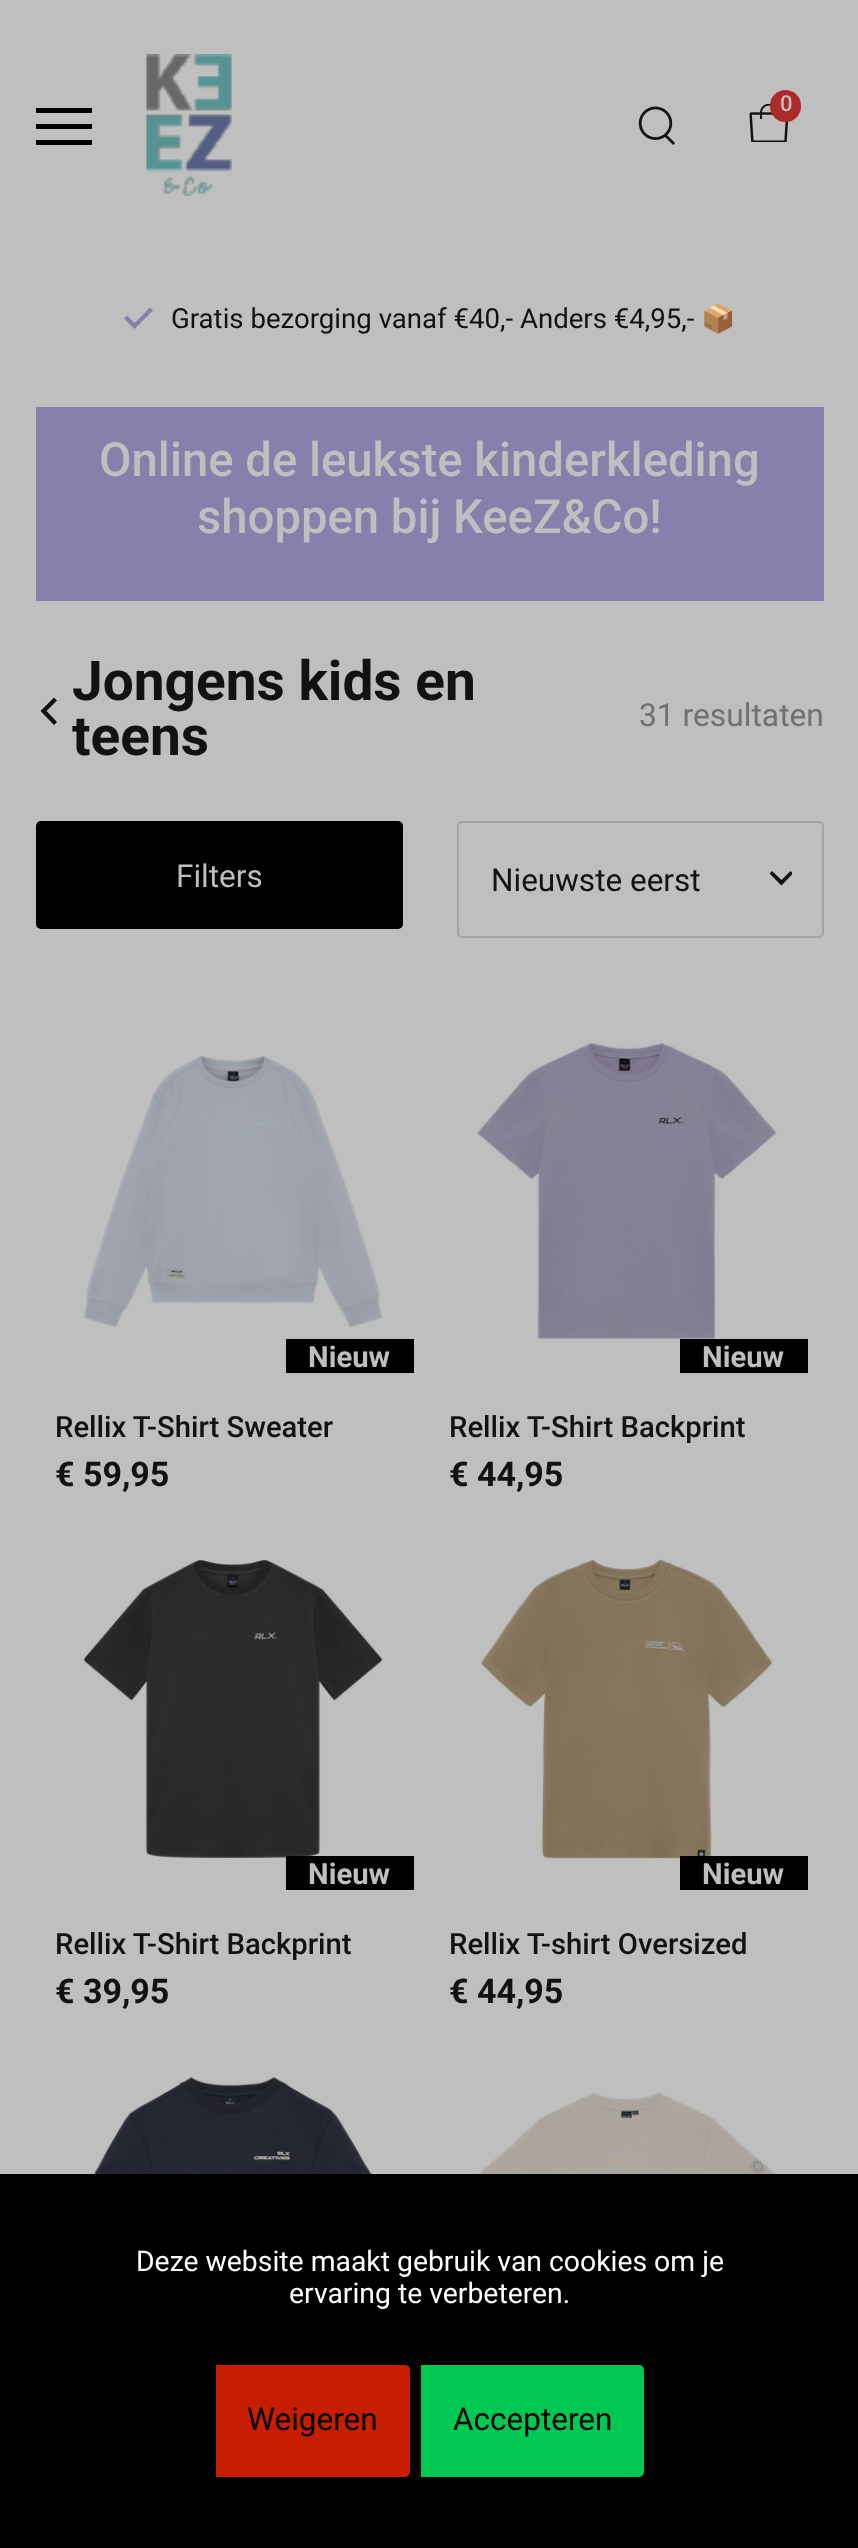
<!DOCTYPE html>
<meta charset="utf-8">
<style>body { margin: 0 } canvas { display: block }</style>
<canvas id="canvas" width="858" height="2548"></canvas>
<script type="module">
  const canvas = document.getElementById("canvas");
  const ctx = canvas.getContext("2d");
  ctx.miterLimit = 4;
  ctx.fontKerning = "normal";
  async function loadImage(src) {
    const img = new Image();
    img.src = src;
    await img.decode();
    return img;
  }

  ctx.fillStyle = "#bfbfbf";
  ctx.fillRect(0, 0, 858, 2548);
  ctx.drawImage(await loadImage("img1.png"), 146, 54, 86, 142);
  ctx.drawImage(await loadImage("img2.png"), 749, 104, 39, 38);
  ctx.fillStyle = "#ac2b28";
  ctx.beginPath();
  ctx.roundRect(770, 90, 31, 32, 15.5);
  ctx.fill();
  ctx.font = "500 22px Roboto";
  ctx.fillStyle = "#bfbfbf";
  ctx.fillText("0", 780, 111);
  ctx.drawImage(await loadImage("img3.png"), 638, 106, 37, 39);
  ctx.fillStyle = "#000000";
  ctx.fillRect(36, 108, 56, 5);
  ctx.fillRect(36, 124, 56, 5);
  ctx.fillRect(36, 140, 56, 5);
  ctx.fillStyle = "#8880ac";
  ctx.beginPath();
  ctx.moveTo(127, 315.5);
  ctx.lineTo(124, 318.5);
  ctx.lineTo(134.5, 329);
  ctx.lineTo(153, 310.5);
  ctx.lineTo(150, 307.5);
  ctx.lineTo(134.5, 323);
  ctx.closePath();
  ctx.fill();
  ctx.font = "27.6px Roboto";
  ctx.fillStyle = "#141114";
  ctx.fillText("Gratis bezorging vanaf €40,- Anders €4,95,-", 171, 328);
  ctx.font = "27.6px Noto Color Emoji";
  ctx.fillText("📦", 701, 328);
  ctx.fillStyle = "#8880ac";
  ctx.fillRect(36, 407, 788, 194);
  ctx.font = "500 47.25px Roboto";
  ctx.fillStyle = "#bfbfbf";
  ctx.fillText("Online de leukste kinderkleding", 99, 476);
  ctx.fillText("shoppen bij KeeZ&Co!", 197, 533);
  ctx.fillStyle = "#141114";
  ctx.beginPath();
  ctx.moveTo(57, 700.5);
  ctx.lineTo(54, 697.5);
  ctx.lineTo(40.5, 711);
  ctx.lineTo(54, 725);
  ctx.lineTo(57, 722);
  ctx.lineTo(46.5, 711);
  ctx.closePath();
  ctx.fill();
  ctx.font = "bold 55px Roboto";
  ctx.fillText("Jongens kids en", 72, 700);
  ctx.fillText("teens", 72, 755);
  ctx.font = "31.75px Roboto";
  ctx.fillStyle = "#717171";
  ctx.fillText("31 resultaten", 639, 726);
  ctx.fillStyle = "#000000";
  ctx.beginPath();
  ctx.roundRect(36, 821, 367, 108, 5);
  ctx.fill();
  ctx.font = "31.5px Roboto";
  ctx.fillStyle = "#bfbfbf";
  ctx.fillText("Filters", 176, 887);
  ctx.beginPath();
  ctx.roundRect(458, 822, 365, 115, 4);
  ctx.strokeStyle = "#a3a3a3";
  ctx.lineWidth = 2;
  ctx.stroke();
  ctx.fillStyle = "#141114";
  ctx.fillText("Nieuwste eerst", 491, 891);
  ctx.save();
  ctx.beginPath();
  ctx.rect(770, 866, 22, 23);
  ctx.clip();
  ctx.beginPath();
  ctx.moveTo(772, 871);
  ctx.lineTo(769.5, 873.5);
  ctx.lineTo(781.5, 885.5);
  ctx.lineTo(793, 873.5);
  ctx.lineTo(790.5, 871);
  ctx.lineTo(781.5, 880);
  ctx.closePath();
  ctx.fill();
  ctx.restore();
  ctx.drawImage(await loadImage("img4.png"), 84, 1056, 298, 271);
  ctx.fillStyle = "#000000";
  ctx.fillRect(286, 1339, 128, 34);
  ctx.font = "bold 29.25px Roboto";
  ctx.fillStyle = "#bfbfbf";
  ctx.fillText("Nieuw", 308, 1367);
  ctx.font = "500 29.25px Roboto";
  ctx.fillStyle = "#141114";
  ctx.fillText("Rellix T-Shirt Sweater", 55, 1437);
  ctx.font = "bold 34px Roboto";
  ctx.fillText("€ 59,95", 55, 1486);
  ctx.drawImage(await loadImage("img5.png"), 477, 1042, 300, 298);
  ctx.fillStyle = "#000000";
  ctx.fillRect(680, 1339, 128, 34);
  ctx.font = "bold 29.25px Roboto";
  ctx.fillStyle = "#bfbfbf";
  ctx.fillText("Nieuw", 702, 1367);
  ctx.font = "500 29.25px Roboto";
  ctx.fillStyle = "#141114";
  ctx.fillText("Rellix T-Shirt Backprint", 449, 1437);
  ctx.font = "bold 34px Roboto";
  ctx.fillText("€ 44,95", 449, 1486);
  ctx.drawImage(await loadImage("img6.png"), 83, 1560, 300, 298);
  ctx.fillStyle = "#000000";
  ctx.fillRect(286, 1856, 128, 34);
  ctx.font = "bold 29.25px Roboto";
  ctx.fillStyle = "#bfbfbf";
  ctx.fillText("Nieuw", 308, 1884);
  ctx.font = "500 29.25px Roboto";
  ctx.fillStyle = "#141114";
  ctx.fillText("Rellix T-Shirt Backprint", 55, 1954);
  ctx.font = "bold 34px Roboto";
  ctx.fillText("€ 39,95", 55, 2003);
  ctx.drawImage(await loadImage("img7.png"), 481, 1559, 292, 300);
  ctx.fillStyle = "#000000";
  ctx.fillRect(680, 1856, 128, 34);
  ctx.font = "bold 29.25px Roboto";
  ctx.fillStyle = "#bfbfbf";
  ctx.fillText("Nieuw", 702, 1884);
  ctx.font = "500 29.25px Roboto";
  ctx.fillStyle = "#141114";
  ctx.fillText("Rellix T-shirt Oversized", 449, 1954);
  ctx.font = "bold 34px Roboto";
  ctx.fillText("€ 44,95", 449, 2003);
  ctx.drawImage(await loadImage("img8.png"), 94, 2077, 278, 97);
  ctx.drawImage(await loadImage("img9.png"), 477, 2092, 299, 82);
  ctx.fillStyle = "#000000";
  ctx.fillRect(0, 2174, 858, 374);
  ctx.font = "28.35px Roboto";
  ctx.fillStyle = "#ffffff";
  ctx.fillText("Deze website maakt gebruik van cookies om je", 136, 2271);
  ctx.fillText("ervaring te verbeteren.", 289, 2303);
  ctx.fillStyle = "#c81e00";
  ctx.beginPath();
  ctx.roundRect(216, 2365, 194, 112, [0, 5, 5, 0]);
  ctx.fill();
  ctx.font = "31.5px Roboto";
  ctx.fillStyle = "#000000";
  ctx.fillText("Weigeren", 247, 2430);
  ctx.fillStyle = "#00c853";
  ctx.beginPath();
  ctx.roundRect(421, 2365, 223, 112, [0, 5, 5, 0]);
  ctx.fill();
  ctx.fillStyle = "#000000";
  ctx.fillText("Accepteren", 453, 2430);
</script>
